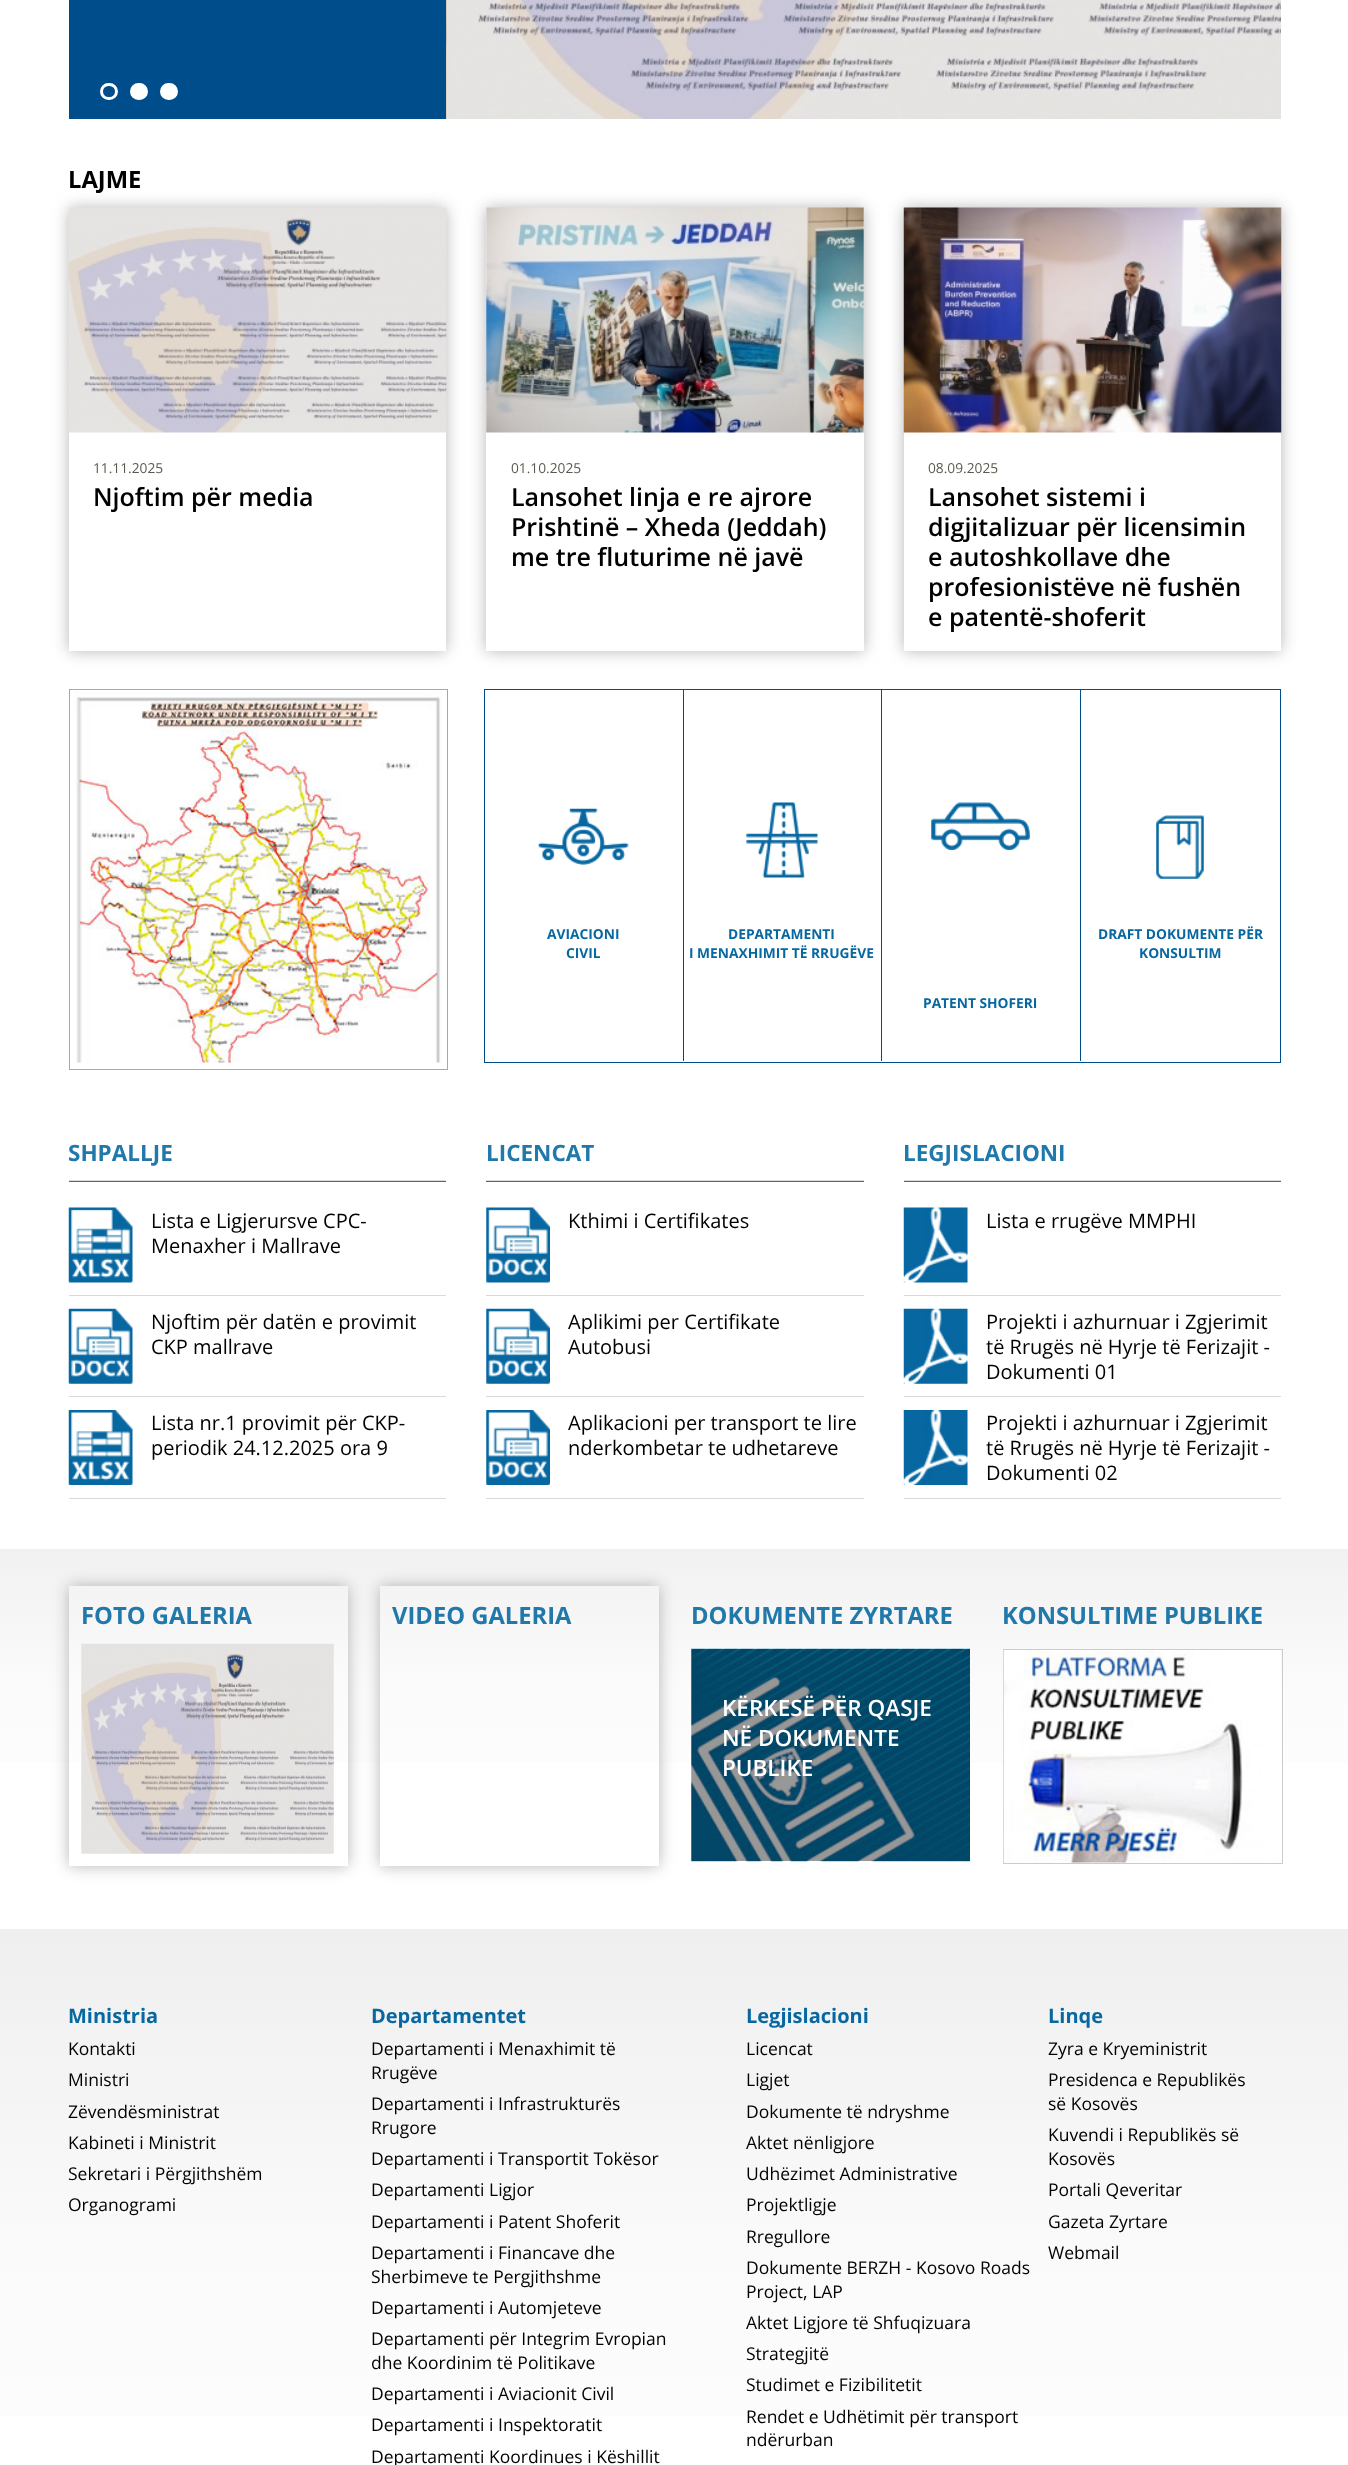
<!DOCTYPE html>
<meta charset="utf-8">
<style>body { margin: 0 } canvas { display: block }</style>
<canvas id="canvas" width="1348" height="2465"></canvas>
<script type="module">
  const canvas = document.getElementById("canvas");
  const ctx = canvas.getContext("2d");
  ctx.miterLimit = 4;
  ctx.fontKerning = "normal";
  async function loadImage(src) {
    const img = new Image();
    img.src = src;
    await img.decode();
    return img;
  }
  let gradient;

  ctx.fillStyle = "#ffffff";
  ctx.fillRect(0, 0, 1348, 2465);
  ctx.fillStyle = "#004d8c";
  ctx.fillRect(69, 0, 377, 119);
  ctx.drawImage(await loadImage("img1.png"), 446, 0, 1, 119);
  ctx.drawImage(await loadImage("img2.png"), 446, 0, 835, 119);
  ctx.beginPath();
  ctx.roundRect(101.5, 84.5, 15, 14, 7);
  ctx.strokeStyle = "#ffffff";
  ctx.lineWidth = 3;
  ctx.stroke();
  ctx.fillStyle = "#ffffff";
  ctx.beginPath();
  ctx.roundRect(131.5, 84.5, 15, 14, 7);
  ctx.fill();
  ctx.stroke();
  ctx.beginPath();
  ctx.roundRect(161.5, 84.5, 15, 14, 7);
  ctx.fill();
  ctx.stroke();
  ctx.font = "bold 23.75px Open Sans";
  ctx.fillStyle = "#000000";
  ctx.fillText("LAJME", 68, 188);
  ctx.save();
  ctx.beginPath();
  ctx.moveTo(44, 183);
  ctx.lineTo(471, 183);
  ctx.lineTo(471, 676);
  ctx.lineTo(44, 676);
  ctx.closePath();
  ctx.moveTo(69, 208);
  ctx.lineTo(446, 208);
  ctx.lineTo(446, 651);
  ctx.lineTo(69, 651);
  ctx.closePath();
  ctx.clip("evenodd");
  ctx.fillStyle = "rgba(161, 161, 161, 0.79)";
  ctx.filter = "blur(8px)";
  ctx.beginPath();
  ctx.rect(69, 208, 377, 443);
  ctx.fill();
  ctx.filter = "none";
  ctx.restore();
  ctx.drawImage(await loadImage("img3.png"), 68, 207, 379, 226);
  ctx.font = "13.75px Open Sans";
  ctx.fillStyle = "#5b5a50";
  ctx.fillText("11.11.2025", 93, 473);
  ctx.font = "600 25px Open Sans";
  ctx.fillStyle = "#000000";
  ctx.fillText("Njoftim për media", 93, 506);
  ctx.save();
  ctx.beginPath();
  ctx.moveTo(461, 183);
  ctx.lineTo(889, 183);
  ctx.lineTo(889, 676);
  ctx.lineTo(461, 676);
  ctx.closePath();
  ctx.moveTo(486, 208);
  ctx.lineTo(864, 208);
  ctx.lineTo(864, 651);
  ctx.lineTo(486, 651);
  ctx.closePath();
  ctx.clip("evenodd");
  ctx.fillStyle = "rgba(161, 161, 161, 0.79)";
  ctx.filter = "blur(8px)";
  ctx.beginPath();
  ctx.rect(486, 208, 378, 443);
  ctx.fill();
  ctx.filter = "none";
  ctx.restore();
  ctx.drawImage(await loadImage("img4.png"), 486, 207, 378, 226);
  ctx.font = "13.75px Open Sans";
  ctx.fillStyle = "#5b5a50";
  ctx.fillText("01.10.2025", 511, 473);
  ctx.font = "600 25px Open Sans";
  ctx.fillStyle = "#000000";
  ctx.fillText("Lansohet linja e re ajrore", 511, 506);
  ctx.fillText("Prishtinë – Xheda (Jeddah)", 511, 536);
  ctx.fillText("me tre fluturime në javë", 511, 566);
  ctx.save();
  ctx.beginPath();
  ctx.moveTo(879, 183);
  ctx.lineTo(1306, 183);
  ctx.lineTo(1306, 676);
  ctx.lineTo(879, 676);
  ctx.closePath();
  ctx.moveTo(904, 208);
  ctx.lineTo(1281, 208);
  ctx.lineTo(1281, 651);
  ctx.lineTo(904, 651);
  ctx.closePath();
  ctx.clip("evenodd");
  ctx.fillStyle = "rgba(161, 161, 161, 0.79)";
  ctx.filter = "blur(8px)";
  ctx.beginPath();
  ctx.rect(904, 208, 377, 443);
  ctx.fill();
  ctx.filter = "none";
  ctx.restore();
  ctx.drawImage(await loadImage("img5.png"), 903, 207, 379, 226);
  ctx.font = "13.75px Open Sans";
  ctx.fillStyle = "#5b5a50";
  ctx.fillText("08.09.2025", 928, 473);
  ctx.font = "600 25px Open Sans";
  ctx.fillStyle = "#000000";
  ctx.fillText("Lansohet sistemi i", 928, 506);
  ctx.fillText("digjitalizuar për licensimin", 928, 536);
  ctx.fillText("e autoshkollave dhe", 928, 566);
  ctx.fillText("profesionistëve në fushën", 928, 596);
  ctx.fillText("e patentë-shoferit", 928, 626);
  ctx.strokeStyle = "#a8a8a8";
  ctx.lineWidth = 1;
  ctx.strokeRect(69.5, 689.5, 378, 380);
  ctx.drawImage(await loadImage("img6.png"), 74, 690, 367, 373);
  ctx.strokeStyle = "#004d8c";
  ctx.strokeRect(484.5, 689.5, 796, 373);
  ctx.fillStyle = "#004d8c";
  ctx.fillRect(683, 690, 1, 371);
  ctx.drawImage(await loadImage("img7.png"), 538, 808, 91, 57);
  ctx.font = "bold 13.75px Open Sans";
  ctx.fillStyle = "#0667a1";
  ctx.fillText("AVIACIONI", 547, 939);
  ctx.fillText("CIVIL", 566, 958);
  ctx.fillStyle = "#004d8c";
  ctx.fillRect(881, 690, 1, 371);
  ctx.drawImage(await loadImage("img8.png"), 746, 802, 72, 76);
  ctx.fillStyle = "#0667a1";
  ctx.fillText("DEPARTAMENTI", 728, 939);
  ctx.fillText("I MENAXHIMIT TË RRUGËVE", 689, 958);
  ctx.drawImage(await loadImage("img9.png"), 1156, 815, 48, 64);
  ctx.fillText("DRAFT DOKUMENTE PËR", 1098, 939);
  ctx.fillText("KONSULTIM", 1139, 958);
  ctx.fillStyle = "#004d8c";
  ctx.fillRect(1080, 690, 1, 371);
  ctx.drawImage(await loadImage("img10.png"), 931, 802, 99, 48);
  ctx.fillStyle = "#0667a1";
  ctx.fillText("PATENT SHOFERI", 923, 1008);
  ctx.fillStyle = "#2178ab";
  ctx.fillRect(69, 1181, 377, 1);
  ctx.fillStyle = "#d9dada";
  ctx.fillRect(69, 1180, 377, 1);
  ctx.font = "bold 22.5px Open Sans";
  ctx.fillStyle = "#2178ab";
  ctx.fillText("SHPALLJE", 68, 1161);
  ctx.fillStyle = "#d9dada";
  ctx.fillRect(69, 1295, 377, 1);
  ctx.drawImage(await loadImage("img11.png"), 68, 1207, 65, 76);
  ctx.font = "20px Open Sans";
  ctx.fillStyle = "#000000";
  ctx.fillText("Lista e Ligjerursve CPC-", 151, 1228);
  ctx.fillText("Menaxher i Mallrave", 151, 1253);
  ctx.fillStyle = "#d9dada";
  ctx.fillRect(69, 1396, 377, 1);
  ctx.drawImage(await loadImage("img12.png"), 68, 1308, 65, 76);
  ctx.fillStyle = "#000000";
  ctx.fillText("Njoftim për datën e provimit", 151, 1329);
  ctx.fillText("CKP mallrave", 151, 1354);
  ctx.fillStyle = "#d9dada";
  ctx.fillRect(69, 1498, 377, 1);
  ctx.drawImage(await loadImage("img13.png"), 68, 1410, 65, 75);
  ctx.fillStyle = "#000000";
  ctx.fillText("Lista nr.1 provimit për CKP-", 151, 1430);
  ctx.fillText("periodik 24.12.2025 ora 9", 151, 1455);
  ctx.fillStyle = "#2178ab";
  ctx.fillRect(486, 1181, 378, 1);
  ctx.fillStyle = "#d9dada";
  ctx.fillRect(486, 1180, 378, 1);
  ctx.font = "bold 22.5px Open Sans";
  ctx.fillStyle = "#2178ab";
  ctx.fillText("LICENCAT", 486, 1161);
  ctx.fillStyle = "#d9dada";
  ctx.fillRect(486, 1295, 378, 1);
  ctx.drawImage(await loadImage("img14.png"), 486, 1207, 64, 76);
  ctx.font = "20px Open Sans";
  ctx.fillStyle = "#000000";
  ctx.fillText("Kthimi i Certifikates", 568, 1228);
  ctx.fillStyle = "#d9dada";
  ctx.fillRect(486, 1396, 378, 1);
  ctx.drawImage(await loadImage("img15.png"), 486, 1308, 64, 76);
  ctx.fillStyle = "#000000";
  ctx.fillText("Aplikimi per Certifikate", 568, 1329);
  ctx.fillText("Autobusi", 568, 1354);
  ctx.fillStyle = "#d9dada";
  ctx.fillRect(486, 1498, 378, 1);
  ctx.drawImage(await loadImage("img16.png"), 486, 1410, 64, 75);
  ctx.fillStyle = "#000000";
  ctx.fillText("Aplikacioni per transport te lire", 568, 1430);
  ctx.fillText("nderkombetar te udhetareve", 568, 1455);
  ctx.fillStyle = "#2178ab";
  ctx.fillRect(904, 1181, 377, 1);
  ctx.fillStyle = "#d9dada";
  ctx.fillRect(904, 1180, 377, 1);
  ctx.font = "bold 22.5px Open Sans";
  ctx.fillStyle = "#2178ab";
  ctx.fillText("LEGJISLACIONI", 903, 1161);
  ctx.fillStyle = "#d9dada";
  ctx.fillRect(904, 1295, 377, 1);
  ctx.drawImage(await loadImage("img17.png"), 903, 1207, 65, 76);
  ctx.font = "20px Open Sans";
  ctx.fillStyle = "#000000";
  ctx.fillText("Lista e rrugëve MMPHI", 986, 1228);
  ctx.fillStyle = "#d9dada";
  ctx.fillRect(904, 1396, 377, 1);
  ctx.drawImage(await loadImage("img18.png"), 903, 1308, 65, 76);
  ctx.fillStyle = "#000000";
  ctx.fillText("Projekti i azhurnuar i Zgjerimit", 986, 1329);
  ctx.fillText("të Rrugës në Hyrje të Ferizajit -", 986, 1354);
  ctx.fillText("Dokumenti 01", 986, 1379);
  ctx.fillStyle = "#d9dada";
  ctx.fillRect(904, 1498, 377, 1);
  ctx.drawImage(await loadImage("img19.png"), 903, 1410, 65, 75);
  ctx.fillStyle = "#000000";
  ctx.fillText("Projekti i azhurnuar i Zgjerimit", 986, 1430);
  ctx.fillText("të Rrugës në Hyrje të Ferizajit -", 986, 1455);
  ctx.fillText("Dokumenti 02", 986, 1480);
  gradient = ctx.createLinearGradient(674, 1549, 674, 1891);
  gradient.addColorStop(0, "#f1f1f1");
  gradient.addColorStop(0.4, "#fbfbfb");
  gradient.addColorStop(1, "#ffffff");
  ctx.fillStyle = gradient;
  ctx.fillRect(0, 1549, 1348, 214);
  ctx.save();
  ctx.beginPath();
  ctx.moveTo(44, 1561);
  ctx.lineTo(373, 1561);
  ctx.lineTo(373, 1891);
  ctx.lineTo(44, 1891);
  ctx.closePath();
  ctx.moveTo(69, 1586);
  ctx.lineTo(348, 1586);
  ctx.lineTo(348, 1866);
  ctx.lineTo(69, 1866);
  ctx.closePath();
  ctx.clip("evenodd");
  ctx.fillStyle = "rgba(161, 161, 161, 0.79)";
  ctx.filter = "blur(8px)";
  ctx.beginPath();
  ctx.rect(69, 1586, 279, 280);
  ctx.fill();
  ctx.filter = "none";
  ctx.restore();
  ctx.font = "bold 23.75px Open Sans";
  ctx.fillStyle = "#2178ab";
  ctx.fillText("FOTO GALERIA", 81, 1624);
  ctx.drawImage(await loadImage("img20.png"), 81, 1643, 253, 211);
  ctx.save();
  ctx.beginPath();
  ctx.moveTo(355, 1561);
  ctx.lineTo(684, 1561);
  ctx.lineTo(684, 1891);
  ctx.lineTo(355, 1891);
  ctx.closePath();
  ctx.moveTo(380, 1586);
  ctx.lineTo(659, 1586);
  ctx.lineTo(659, 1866);
  ctx.lineTo(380, 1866);
  ctx.closePath();
  ctx.clip("evenodd");
  ctx.fillStyle = "rgba(161, 161, 161, 0.79)";
  ctx.filter = "blur(8px)";
  ctx.beginPath();
  ctx.rect(380, 1586, 279, 280);
  ctx.fill();
  ctx.filter = "none";
  ctx.restore();
  ctx.fillText("VIDEO GALERIA", 392, 1624);
  ctx.fillText("DOKUMENTE ZYRTARE", 691, 1624);
  ctx.drawImage(await loadImage("img21.png"), 691, 1648, 279, 214);
  ctx.font = "600 22.5px Open Sans";
  ctx.fillStyle = "#ffffff";
  ctx.fillText("KËRKESË PËR QASJE", 722, 1716);
  ctx.fillText("NË DOKUMENTE", 722, 1746);
  ctx.fillText("PUBLIKE", 722, 1776);
  ctx.font = "bold 23.75px Open Sans";
  ctx.fillStyle = "#2178ab";
  ctx.fillText("KONSULTIME PUBLIKE", 1002, 1624);
  ctx.strokeStyle = "#cccccc";
  ctx.strokeRect(1003.5, 1649.5, 279, 214);
  ctx.drawImage(await loadImage("img22.png"), 1003, 1650, 278, 213);
  gradient = ctx.createLinearGradient(674, 1929, 674, 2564);
  gradient.addColorStop(0, "#efefef");
  gradient.addColorStop(0.24, "#f4f4f4");
  gradient.addColorStop(0.44, "#f9f9f9");
  gradient.addColorStop(1, "#ffffff");
  ctx.fillStyle = gradient;
  ctx.fillRect(0, 1929, 1348, 487);
  ctx.font = "bold 20px Open Sans";
  ctx.fillStyle = "#0667a1";
  ctx.fillText("Ministria", 68, 2023);
  ctx.font = "17.5px Open Sans";
  ctx.fillStyle = "#000000";
  ctx.fillText("Kontakti", 68, 2055);
  ctx.fillText("Ministri", 68, 2086);
  ctx.fillText("Zëvendësministrat", 68, 2118);
  ctx.fillText("Kabineti i Ministrit", 68, 2149);
  ctx.fillText("Sekretari i Përgjithshëm", 68, 2180);
  ctx.fillText("Organogrami", 68, 2211);
  ctx.font = "bold 20px Open Sans";
  ctx.fillStyle = "#0667a1";
  ctx.fillText("Departamentet", 371, 2023);
  ctx.font = "17.5px Open Sans";
  ctx.fillStyle = "#000000";
  ctx.fillText("Departamenti i Menaxhimit të", 371, 2055);
  ctx.fillText("Rrugëve", 371, 2079);
  ctx.fillText("Departamenti i Infrastrukturës", 371, 2110);
  ctx.fillText("Rrugore", 371, 2134);
  ctx.fillText("Departamenti i Transportit Tokësor", 371, 2165);
  ctx.fillText("Departamenti Ligjor", 371, 2196);
  ctx.fillText("Departamenti i Patent Shoferit", 371, 2228);
  ctx.fillText("Departamenti i Financave dhe", 371, 2259);
  ctx.fillText("Sherbimeve te Pergjithshme", 371, 2283);
  ctx.fillText("Departamenti i Automjeteve", 371, 2314);
  ctx.fillText("Departamenti për Integrim Evropian", 371, 2345);
  ctx.fillText("dhe Koordinim të Politikave", 371, 2369);
  ctx.fillText("Departamenti i Aviacionit Civil", 371, 2400);
  ctx.fillText("Departamenti i Inspektoratit", 371, 2431);
  ctx.fillText("Departamenti Koordinues i Këshillit", 371, 2463);
  ctx.font = "bold 20px Open Sans";
  ctx.fillStyle = "#0667a1";
  ctx.fillText("Legjislacioni", 746, 2023);
  ctx.font = "17.5px Open Sans";
  ctx.fillStyle = "#000000";
  ctx.fillText("Licencat", 746, 2055);
  ctx.fillText("Ligjet", 746, 2086);
  ctx.fillText("Dokumente të ndryshme", 746, 2118);
  ctx.fillText("Aktet nënligjore", 746, 2149);
  ctx.fillText("Udhëzimet Administrative", 746, 2180);
  ctx.fillText("Projektligje", 746, 2211);
  ctx.fillText("Rregullore", 746, 2243);
  ctx.fillText("Dokumente BERZH - Kosovo Roads", 746, 2274);
  ctx.fillText("Project, LAP", 746, 2298);
  ctx.fillText("Aktet Ligjore të Shfuqizuara", 746, 2329);
  ctx.fillText("Strategjitë", 746, 2360);
  ctx.fillText("Studimet e Fizibilitetit", 746, 2391);
  ctx.fillText("Rendet e Udhëtimit për transport", 746, 2423);
  ctx.fillText("ndërurban", 746, 2446);
  ctx.font = "bold 20px Open Sans";
  ctx.fillStyle = "#0667a1";
  ctx.fillText("Linqe", 1048, 2023);
  ctx.font = "17.5px Open Sans";
  ctx.fillStyle = "#000000";
  ctx.fillText("Zyra e Kryeministrit", 1048, 2055);
  ctx.fillText("Presidenca e Republikës", 1048, 2086);
  ctx.fillText("së Kosovës", 1048, 2110);
  ctx.fillText("Kuvendi i Republikës së", 1048, 2141);
  ctx.fillText("Kosovës", 1048, 2165);
  ctx.fillText("Portali Qeveritar", 1048, 2196);
  ctx.fillText("Gazeta Zyrtare", 1048, 2228);
  ctx.fillText("Webmail", 1048, 2259);
</script>
